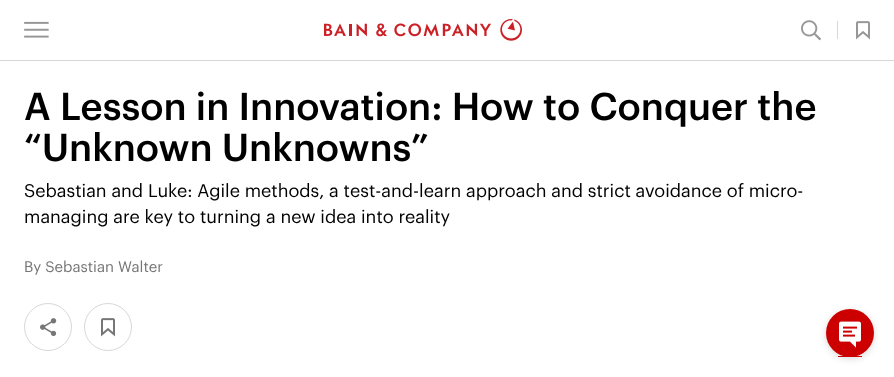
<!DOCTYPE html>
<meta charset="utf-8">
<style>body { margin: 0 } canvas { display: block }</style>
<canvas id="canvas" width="894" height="377"></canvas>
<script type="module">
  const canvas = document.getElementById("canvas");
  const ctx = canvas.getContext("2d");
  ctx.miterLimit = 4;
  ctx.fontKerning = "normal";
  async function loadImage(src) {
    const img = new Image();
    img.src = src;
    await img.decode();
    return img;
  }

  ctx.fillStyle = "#ffffff";
  ctx.fillRect(0, 0, 894, 377);
  ctx.fillStyle = "#d8d8d8";
  ctx.fillRect(0, 60, 894, 1);
  ctx.drawImage(await loadImage("img1.png"), 24, 21, 25, 17);
  ctx.drawImage(await loadImage("img2.png"), 324, 19, 198, 22);
  ctx.drawImage(await loadImage("img3.png"), 801, 20, 20, 21);
  ctx.fillRect(837, 21, 1, 18);
  ctx.drawImage(await loadImage("img4.png"), 856, 21, 14, 19);
  ctx.font = "500 38px Graphik";
  ctx.fillStyle = "#000000";
  ctx.fillText("A Lesson in Innovation: How to Conquer the", 24, 120);
  ctx.fillText("“Unknown Unknowns”", 24, 161);
  ctx.font = "18px Graphik";
  ctx.fillText("Sebastian and Luke: Agile methods, a test-and-learn approach and strict avoidance of micro-", 24, 197);
  ctx.fillText("managing are key to turning a new idea into reality", 24, 223);
  ctx.font = "15px Graphik";
  ctx.fillStyle = "#767676";
  ctx.fillText("By Sebastian Walter", 24, 272);
  ctx.beginPath();
  ctx.arc(48, 327, 23.5, 0, Math.PI * 2);
  ctx.strokeStyle = "#d8d8d8";
  ctx.stroke();
  ctx.drawImage(await loadImage("img5.png"), 40, 318, 17, 18);
  ctx.beginPath();
  ctx.arc(108, 327, 23.5, 0, Math.PI * 2);
  ctx.stroke();
  ctx.drawImage(await loadImage("img6.png"), 101, 318, 14, 19);
  ctx.fillStyle = "rgba(0, 0, 0, 0.15)";
  ctx.filter = "blur(3.5px)";
  ctx.beginPath();
  ctx.roundRect(826, 311, 48, 48, 24);
  ctx.fill();
  ctx.filter = "none";
  ctx.fillStyle = "#cc0000";
  ctx.beginPath();
  ctx.arc(850, 333, 24, 0, Math.PI * 2);
  ctx.fill();
  ctx.fillRect(838, 356, 24, 1);
  ctx.drawImage(await loadImage("img7.png"), 839, 321, 22, 27);
</script>
